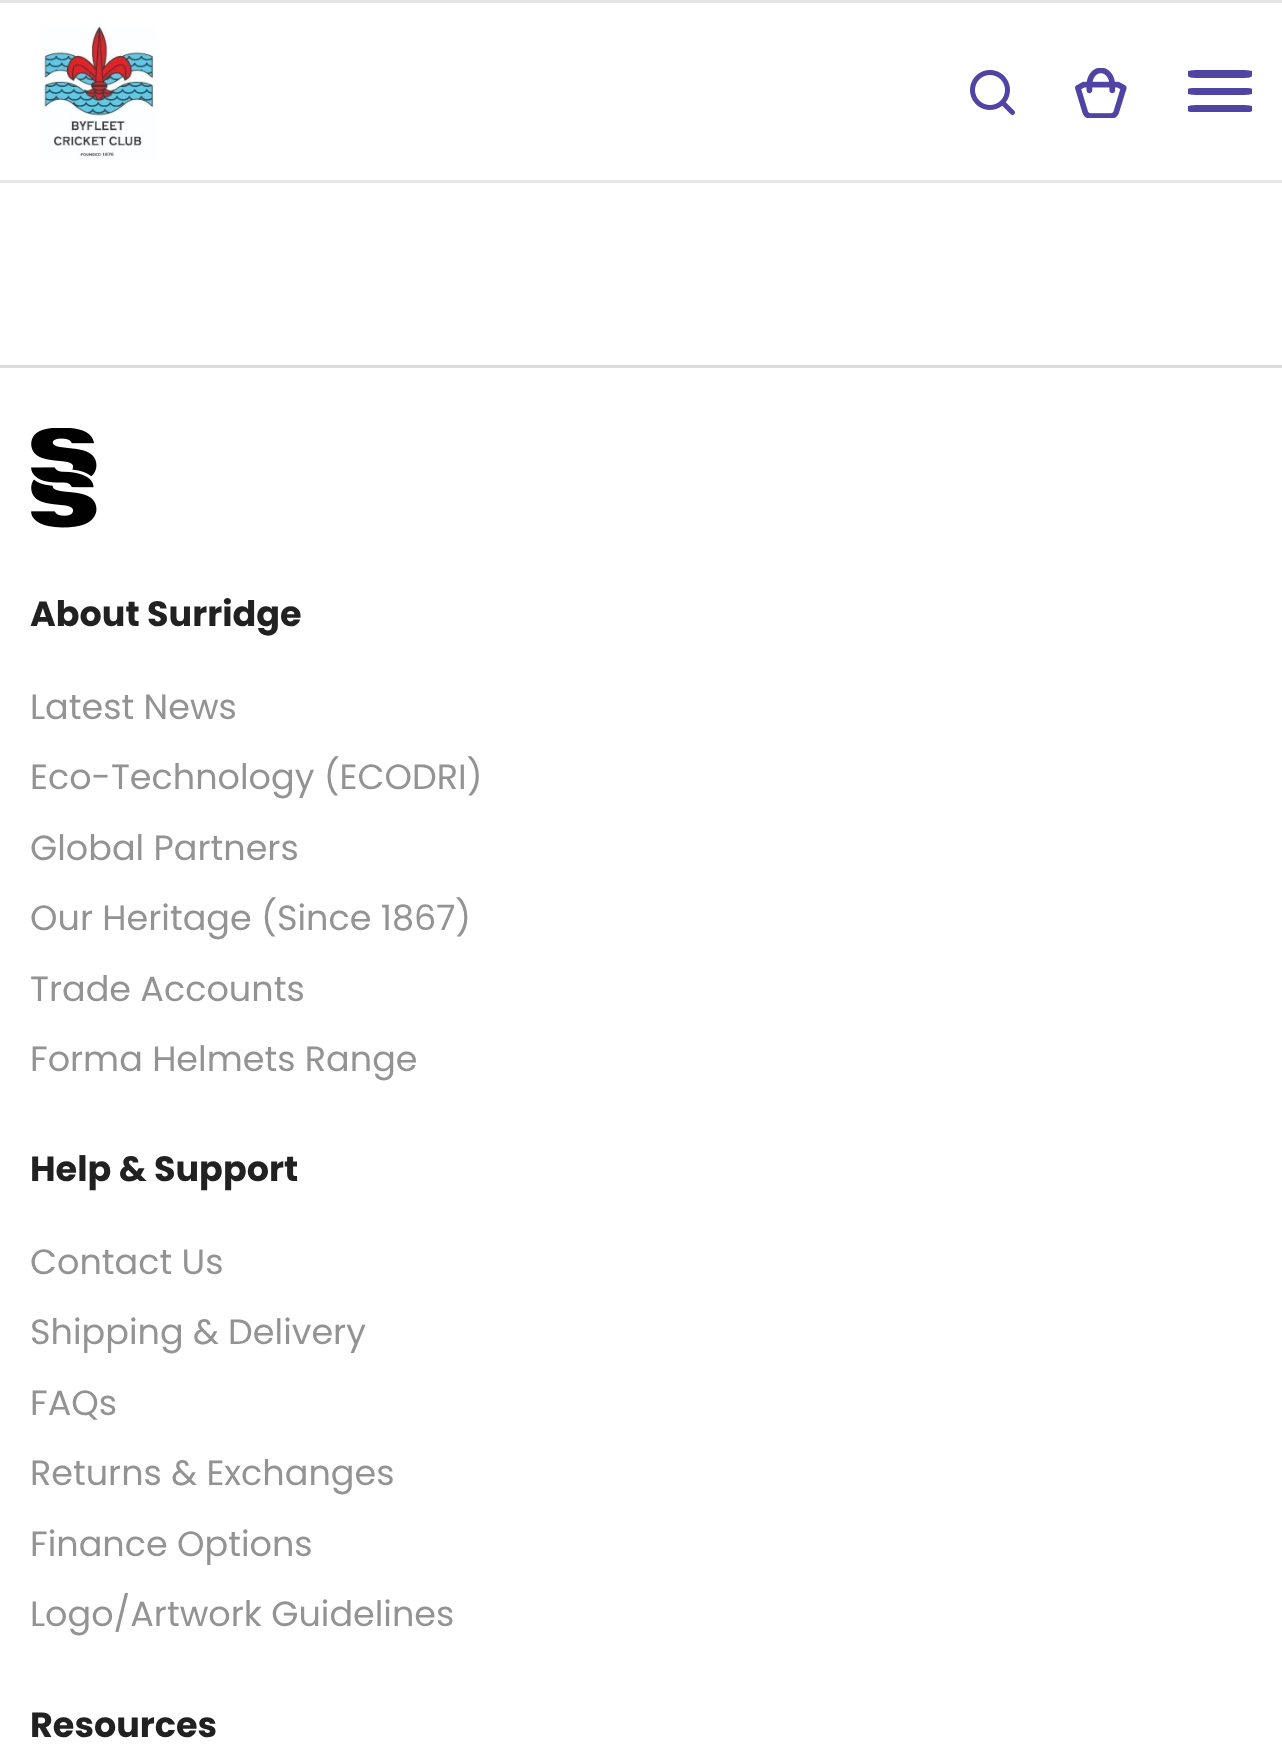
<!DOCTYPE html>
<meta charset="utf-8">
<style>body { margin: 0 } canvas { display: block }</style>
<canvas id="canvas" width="1282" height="1757"></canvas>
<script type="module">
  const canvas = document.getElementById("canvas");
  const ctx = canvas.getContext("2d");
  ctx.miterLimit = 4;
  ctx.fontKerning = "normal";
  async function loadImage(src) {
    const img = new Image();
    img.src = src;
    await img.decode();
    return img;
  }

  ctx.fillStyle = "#ffffff";
  ctx.fillRect(0, 0, 1282, 1757);
  ctx.fillStyle = "#e6e6e6";
  ctx.fillRect(0, 0, 1282, 3);
  ctx.fillRect(0, 180, 1282, 3);
  ctx.drawImage(await loadImage("img1.png"), 42, 26, 114, 134);
  ctx.drawImage(await loadImage("img2.png"), 970, 70, 45, 45);
  ctx.drawImage(await loadImage("img3.png"), 1075, 68, 52, 50);
  ctx.fillStyle = "#4f43a3";
  ctx.beginPath();
  ctx.moveTo(1197, 70);
  ctx.lineTo(1243, 70);
  ctx.bezierCurveTo(1248, 70, 1252, 71, 1252, 71);
  ctx.lineTo(1252, 76);
  ctx.bezierCurveTo(1252, 77, 1248, 78, 1243, 78);
  ctx.lineTo(1197, 78);
  ctx.bezierCurveTo(1192, 78, 1188, 77, 1188, 76);
  ctx.lineTo(1188, 71);
  ctx.bezierCurveTo(1188, 71, 1192, 70, 1197, 70);
  ctx.closePath();
  ctx.fill();
  ctx.beginPath();
  ctx.moveTo(1197, 88);
  ctx.lineTo(1243, 88);
  ctx.bezierCurveTo(1248, 88, 1252, 88, 1252, 89);
  ctx.lineTo(1252, 94);
  ctx.bezierCurveTo(1252, 94, 1248, 95, 1243, 95);
  ctx.lineTo(1197, 95);
  ctx.bezierCurveTo(1192, 95, 1188, 94, 1188, 94);
  ctx.lineTo(1188, 89);
  ctx.bezierCurveTo(1188, 88, 1192, 88, 1197, 88);
  ctx.closePath();
  ctx.fill();
  ctx.beginPath();
  ctx.moveTo(1197, 105);
  ctx.lineTo(1243, 105);
  ctx.bezierCurveTo(1248, 105, 1252, 106, 1252, 106);
  ctx.lineTo(1252, 111);
  ctx.bezierCurveTo(1252, 112, 1248, 112, 1243, 112);
  ctx.lineTo(1197, 112);
  ctx.bezierCurveTo(1192, 112, 1188, 112, 1188, 111);
  ctx.lineTo(1188, 106);
  ctx.bezierCurveTo(1188, 106, 1192, 105, 1197, 105);
  ctx.closePath();
  ctx.fill();
  ctx.fillStyle = "#dbdbdb";
  ctx.fillRect(0, 365, 1282, 3);
  ctx.drawImage(await loadImage("img4.png"), 31, 428, 66, 100);
  ctx.font = "bold 35px Poppins";
  ctx.fillStyle = "#212121";
  ctx.fillText("About Surridge", 30, 626);
  ctx.font = "35px Poppins";
  ctx.fillStyle = "#939393";
  ctx.fillText("Latest News", 30, 719);
  ctx.fillText("Eco-Technology (ECODRI)", 30, 789);
  ctx.fillText("Global Partners", 30, 860);
  ctx.fillText("Our Heritage (Since 1867)", 30, 930);
  ctx.fillText("Trade Accounts", 30, 1001);
  ctx.fillText("Forma Helmets Range", 30, 1071);
  ctx.font = "bold 35px Poppins";
  ctx.fillStyle = "#212121";
  ctx.fillText("Help & Support", 30, 1181);
  ctx.font = "35px Poppins";
  ctx.fillStyle = "#939393";
  ctx.fillText("Contact Us", 30, 1274);
  ctx.fillText("Shipping & Delivery", 30, 1344);
  ctx.fillText("FAQs", 30, 1415);
  ctx.fillText("Returns & Exchanges", 30, 1485);
  ctx.fillText("Finance Options", 30, 1556);
  ctx.fillText("Logo/Artwork Guidelines", 30, 1626);
  ctx.font = "bold 35px Poppins";
  ctx.fillStyle = "#212121";
  ctx.fillText("Resources", 30, 1737);
</script>
